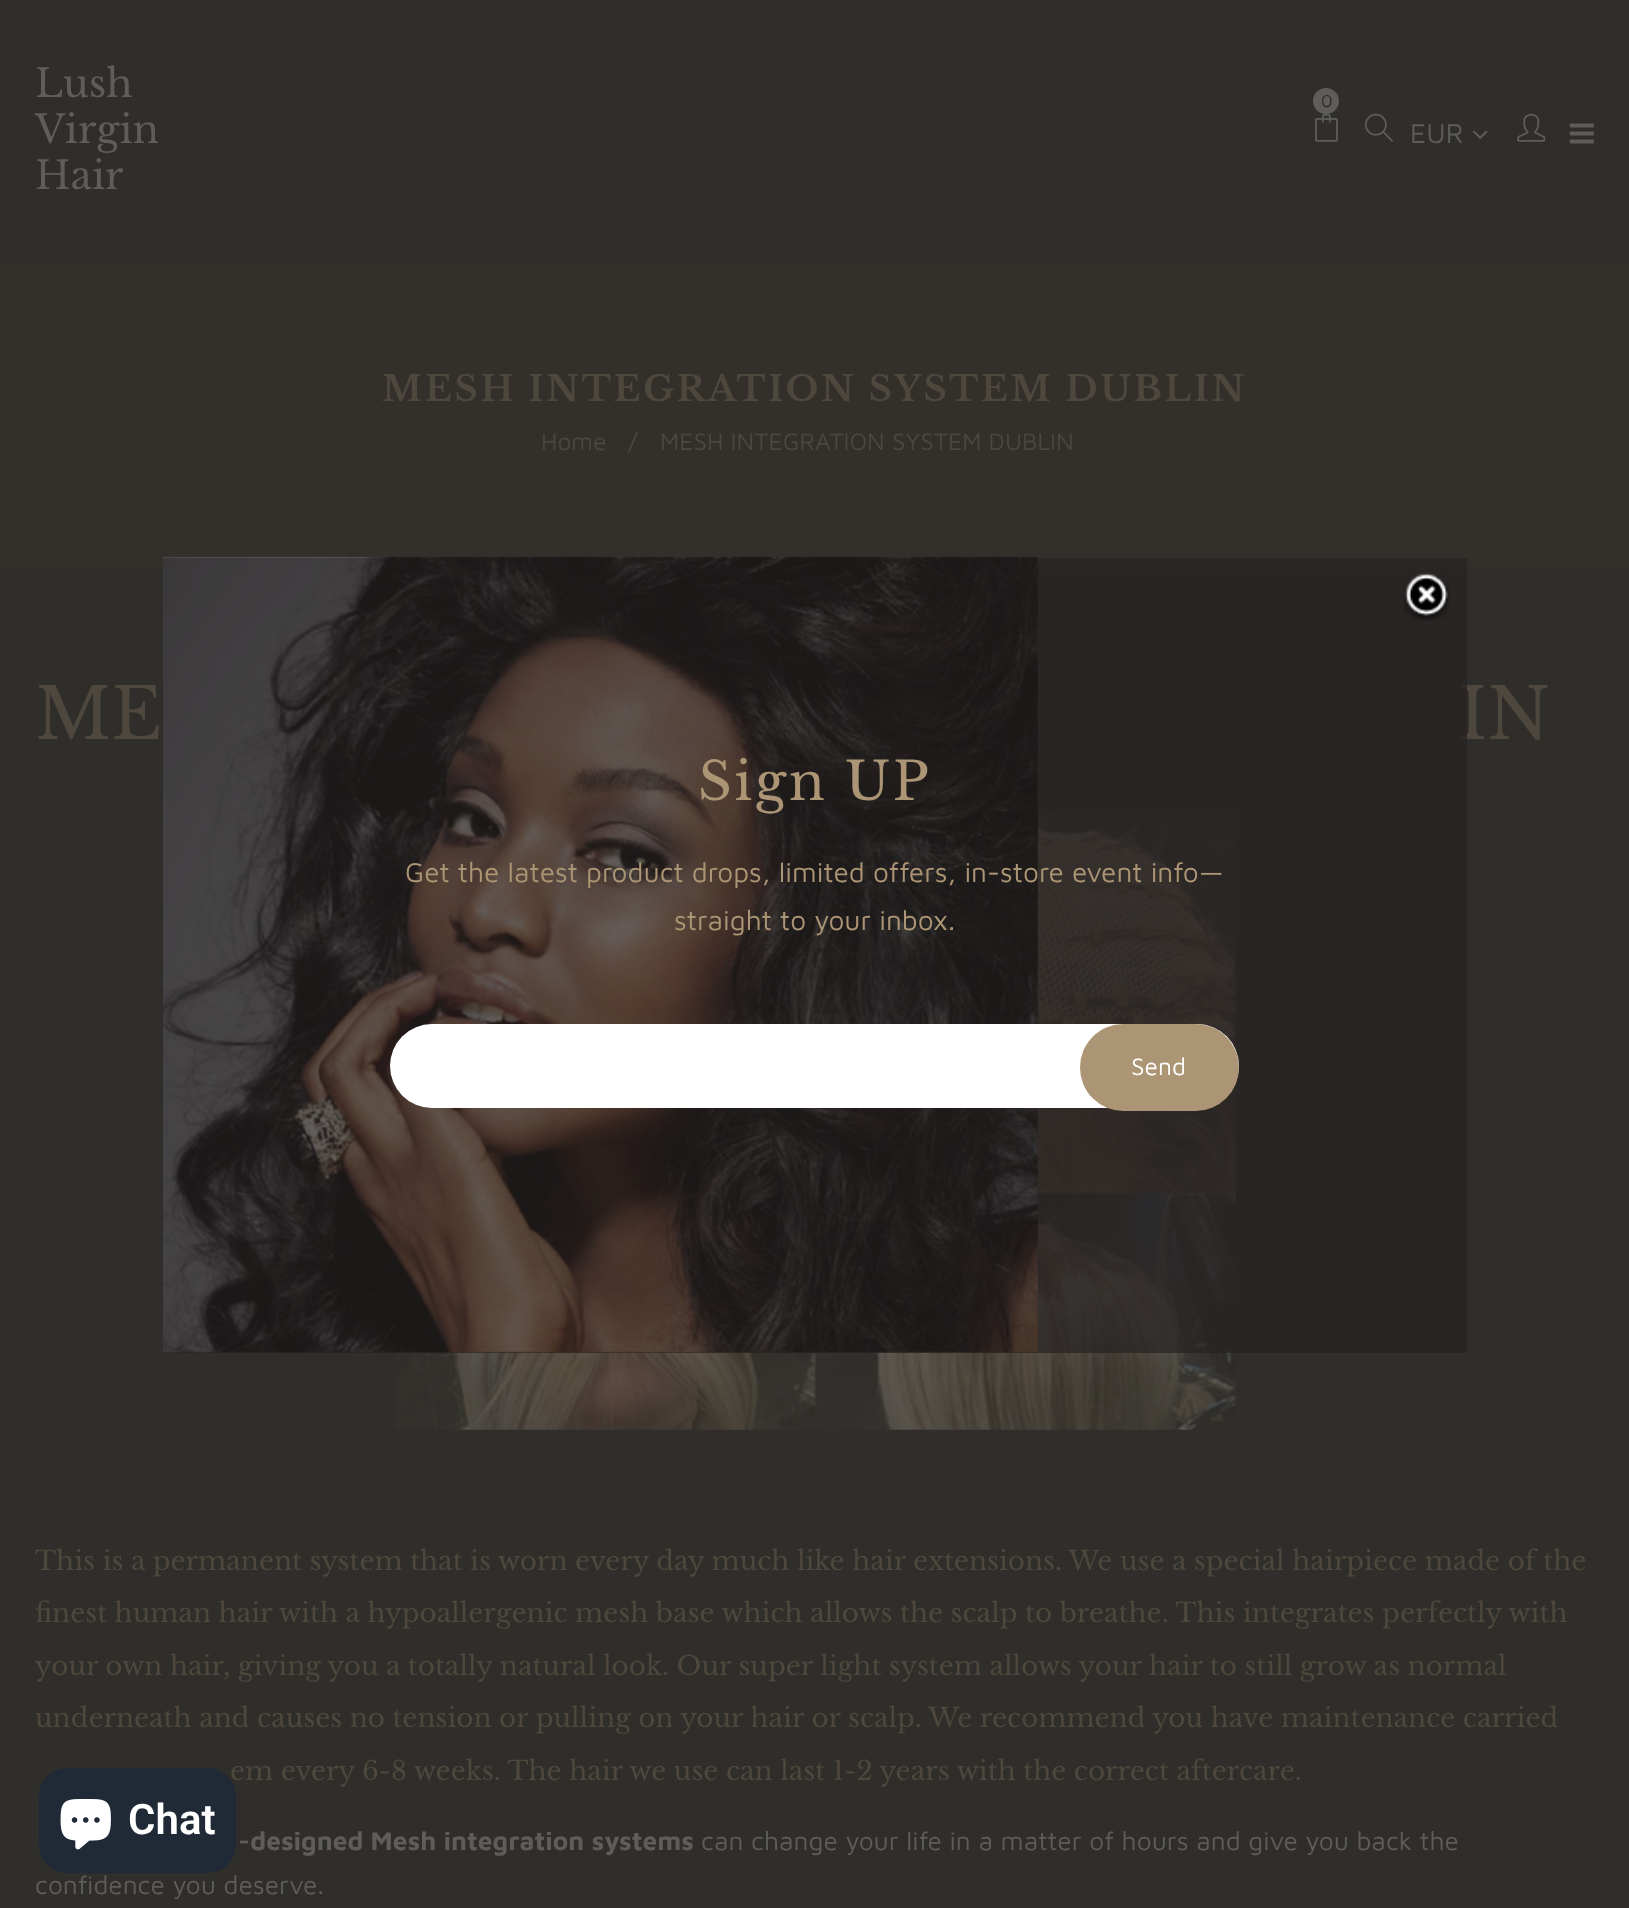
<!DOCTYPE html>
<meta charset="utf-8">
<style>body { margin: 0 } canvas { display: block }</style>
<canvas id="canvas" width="1629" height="1908"></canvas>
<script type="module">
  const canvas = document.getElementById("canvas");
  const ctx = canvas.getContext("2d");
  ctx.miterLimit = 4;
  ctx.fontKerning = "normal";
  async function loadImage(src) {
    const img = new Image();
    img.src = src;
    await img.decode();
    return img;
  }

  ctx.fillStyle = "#302e2a";
  ctx.fillRect(0, 0, 1629, 1908);
  ctx.font = "38.5px Libre Baskerville";
  ctx.fillStyle = "#5e5d59";
  ctx.fillText("Lush", 35, 97);
  ctx.fillText("Virgin", 35, 143);
  ctx.fillText("Hair", 35, 189);
  ctx.drawImage(await loadImage("img1.png"), 1315, 113, 23, 29);
  ctx.beginPath();
  ctx.arc(1326, 101, 13, 0, Math.PI * 2);
  ctx.fill();
  ctx.font = "18px Maven Pro";
  ctx.fillStyle = "#2b2a26";
  ctx.fillText("0", 1321, 107);
  ctx.drawImage(await loadImage("img2.png"), 1364, 113, 29, 29);
  ctx.font = "28px Maven Pro";
  ctx.fillStyle = "#5e5d59";
  ctx.fillText("EUR", 1410, 143);
  ctx.drawImage(await loadImage("img3.png"), 1472, 130, 16, 9);
  ctx.drawImage(await loadImage("img4.png"), 1517, 113, 29, 29);
  ctx.drawImage(await loadImage("img5.png"), 1569, 123, 25, 21);
  ctx.fillStyle = "#33302c";
  ctx.fillRect(0, 263, 1629, 306);
  ctx.letterSpacing = "2.8px";
  ctx.font = "bold 35px Libre Baskerville";
  ctx.fillStyle = "#4d473d";
  ctx.fillText("MESH INTEGRATION SYSTEM DUBLIN", 382, 401);
  ctx.letterSpacing = "0px";
  ctx.font = "24.5px Maven Pro";
  ctx.fillText("Home", 541, 450);
  ctx.fillText("/", 628, 450);
  ctx.fillText("MESH INTEGRATION SYSTEM DUBLIN", 660, 450);
  ctx.font = "70px Libre Baskerville";
  ctx.fillText("ME", 35, 739);
  ctx.fillText("IN", 1458, 739);
  ctx.drawImage(await loadImage("img6.png"), 395, 810, 841, 620);
  ctx.font = "26.25px Libre Baskerville";
  ctx.fillText("This is a permanent system that is worn every day much like hair extensions. We use a special hairpiece made of the", 35, 1570);
  ctx.fillText("finest human hair with a hypoallergenic mesh base which allows the scalp to breathe. This integrates perfectly with", 35, 1622);
  ctx.fillText("your own hair, giving you a totally natural look. Our super light system allows your hair to still grow as normal", 35, 1675);
  ctx.fillText("underneath and causes no tension or pulling on your hair or scalp. We recommend you have maintenance carried", 35, 1727);
  ctx.fillText("em every 6-8 weeks. The hair we use can last 1-2 years with the correct aftercare.", 230, 1780);
  ctx.font = "bold 26.25px Maven Pro";
  ctx.fillStyle = "#5e5d59";
  ctx.fillText("-designed Mesh integration systems", 238, 1850);
  ctx.font = "26.25px Maven Pro";
  ctx.fillText("can change your life in a matter of hours and give you back the", 701, 1850);
  ctx.fillText("confidence you deserve.", 35, 1894);
  ctx.drawImage(await loadImage("img7.png"), 163, 556, 875, 797);
  ctx.fillStyle = "rgba(38, 34, 34, 0.7)";
  ctx.fillRect(163, 558, 1304, 795);
  ctx.drawImage(await loadImage("img8.png"), 1403, 572, 47, 49);
  ctx.letterSpacing = "2.5px";
  ctx.font = "52.5px Libre Baskerville";
  ctx.fillStyle = "#ab9574";
  ctx.fillText("Sign UP", 698, 800);
  ctx.letterSpacing = "0px";
  ctx.font = "28px Maven Pro";
  ctx.fillText("Get the latest product drops, limited offers, in-store event info—", 405, 882);
  ctx.fillText("straight to your inbox.", 674, 930);
  ctx.fillStyle = "#ffffff";
  ctx.beginPath();
  ctx.roundRect(390, 1024, 849, 84, 42);
  ctx.fill();
  ctx.fillStyle = "#ab9574";
  ctx.beginPath();
  ctx.roundRect(1080, 1024, 159, 87, 43.5);
  ctx.fill();
  ctx.font = "24.5px Maven Pro";
  ctx.fillStyle = "#ffffff";
  ctx.fillText("Send", 1131, 1075);
  ctx.fillStyle = "#202a36";
  ctx.beginPath();
  ctx.roundRect(39, 1768, 197, 105, 28);
  ctx.fill();
  ctx.drawImage(await loadImage("img9.png"), 60, 1799, 51, 51);
  ctx.font = "600 42px Roboto";
  ctx.fillStyle = "#ffffff";
  ctx.fillText("Chat", 128, 1834);
</script>
